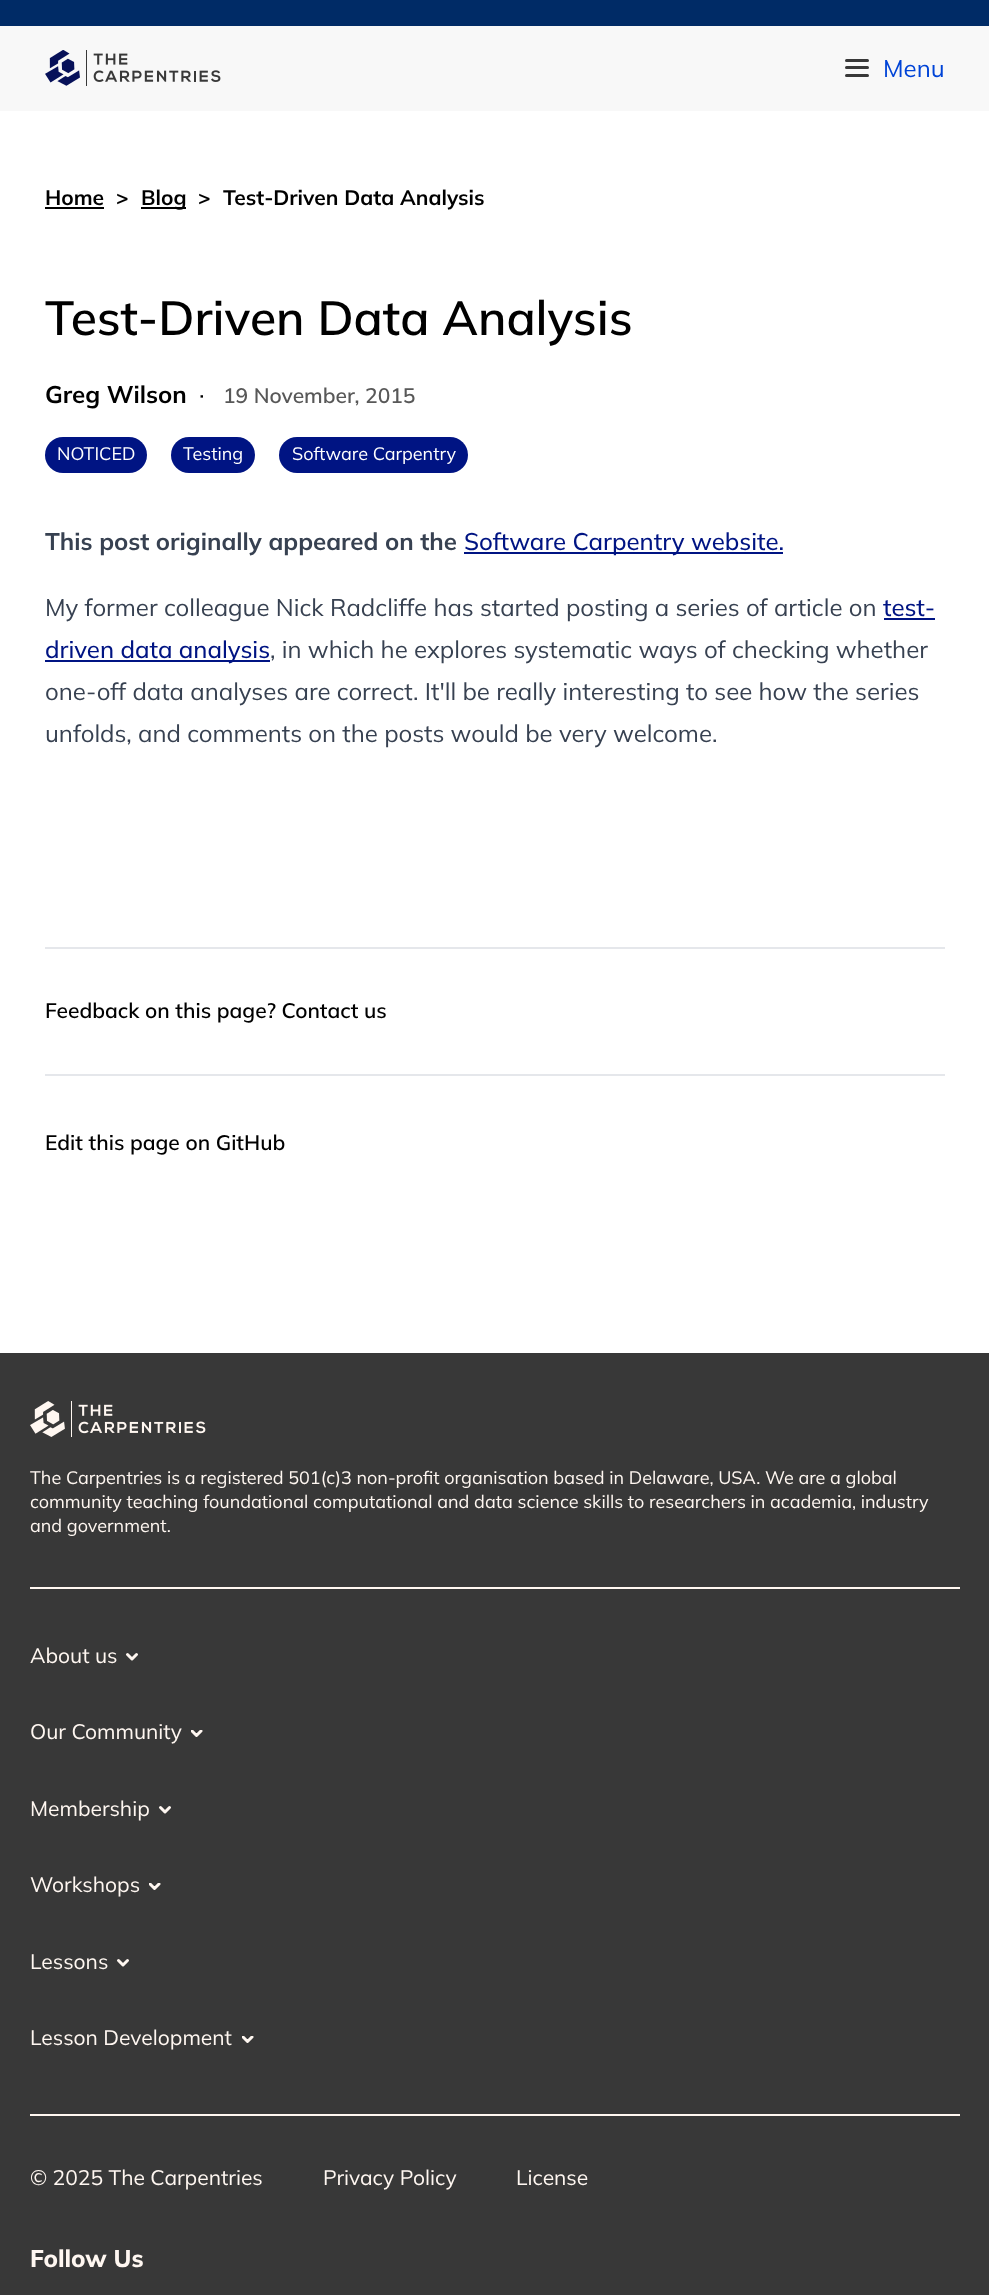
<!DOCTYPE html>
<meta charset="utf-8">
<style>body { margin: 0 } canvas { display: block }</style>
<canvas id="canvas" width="989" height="2295"></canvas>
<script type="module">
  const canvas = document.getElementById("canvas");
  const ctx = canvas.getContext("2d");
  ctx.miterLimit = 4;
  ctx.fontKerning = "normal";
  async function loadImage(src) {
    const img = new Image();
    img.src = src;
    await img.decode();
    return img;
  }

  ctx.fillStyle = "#ffffff";
  ctx.fillRect(0, 0, 989, 2295);
  ctx.fillStyle = "#002b66";
  ctx.fillRect(0, 0, 989, 26);
  ctx.fillStyle = "#f8f8f8";
  ctx.fillRect(0, 26, 989, 85);
  ctx.drawImage(await loadImage("img1.png"), 45, 50, 176, 36);
  ctx.fillStyle = "#383838";
  ctx.beginPath();
  ctx.roundRect(845, 59, 24, 3, 1.5);
  ctx.fill();
  ctx.beginPath();
  ctx.roundRect(845, 66, 24, 3, 1.5);
  ctx.fill();
  ctx.beginPath();
  ctx.roundRect(845, 74, 24, 3, 1.5);
  ctx.fill();
  ctx.font = "24px Mulish";
  ctx.fillStyle = "#0044d7";
  ctx.fillText("Menu", 883, 77);
  ctx.font = "bold 21px Mulish";
  ctx.fillStyle = "#000000";
  ctx.fillText("Home", 45, 205);
  ctx.fillRect(45, 207, 59, 2);
  ctx.fillText(">", 116, 205);
  ctx.fillRect(141, 207, 45, 2);
  ctx.fillText("Blog", 141, 205);
  ctx.fillText(">", 198, 205);
  ctx.fillText("Test-Driven Data Analysis", 223, 205);
  ctx.font = "600 48px Mulish";
  ctx.fillText("Test-Driven Data Analysis", 45, 335);
  ctx.font = "bold 24px Mulish";
  ctx.fillText("Greg Wilson", 45, 403);
  ctx.font = "24px Mulish";
  ctx.fillText("·", 199, 403);
  ctx.font = "600 21px Mulish";
  ctx.fillStyle = "#585858";
  ctx.fillText("19 November, 2015", 223, 403);
  ctx.fillStyle = "#001483";
  ctx.beginPath();
  ctx.roundRect(45, 437, 102, 36, 18);
  ctx.fill();
  ctx.font = "18px Mulish";
  ctx.fillStyle = "#ffffff";
  ctx.fillText("NOTICED", 57, 460);
  ctx.fillStyle = "#001483";
  ctx.beginPath();
  ctx.roundRect(171, 437, 84, 36, 18);
  ctx.fill();
  ctx.fillStyle = "#ffffff";
  ctx.fillText("Testing", 183, 460);
  ctx.fillStyle = "#001483";
  ctx.beginPath();
  ctx.roundRect(279, 437, 189, 36, 18);
  ctx.fill();
  ctx.fillStyle = "#ffffff";
  ctx.fillText("Software Carpentry", 292, 460);
  ctx.font = "bold 24px Mulish";
  ctx.fillStyle = "#374151";
  ctx.fillText("This post originally appeared on the", 45, 550);
  ctx.fillStyle = "#001483";
  ctx.fillRect(464, 552, 319, 2);
  ctx.font = "500 24px Mulish";
  ctx.fillText("Software Carpentry website.", 464, 550);
  ctx.font = "24px Mulish";
  ctx.fillStyle = "#374151";
  ctx.fillText("My former colleague Nick Radcliffe has started posting a series of article on", 45, 616);
  ctx.font = "500 24px Mulish";
  ctx.fillStyle = "#001483";
  ctx.fillText("test-", 883, 616);
  ctx.fillRect(884, 618, 51, 2);
  ctx.fillRect(45, 660, 225, 2);
  ctx.fillText("driven data analysis", 45, 658);
  ctx.font = "24px Mulish";
  ctx.fillStyle = "#374151";
  ctx.fillText(", in which he explores systematic ways of checking whether", 270, 658);
  ctx.fillText("one-off data analyses are correct. It'll be really interesting to see how the series", 45, 700);
  ctx.fillText("unfolds, and comments on the posts would be very welcome.", 45, 742);
  ctx.fillStyle = "#e5e7eb";
  ctx.fillRect(45, 947, 900, 2);
  ctx.font = "600 21px Mulish";
  ctx.fillStyle = "#000000";
  ctx.fillText("Feedback on this page? Contact us", 45, 1018);
  ctx.fillStyle = "#e5e7eb";
  ctx.fillRect(45, 1074, 900, 2);
  ctx.fillStyle = "#000000";
  ctx.fillText("Edit this page on GitHub", 45, 1150);
  ctx.fillStyle = "#383838";
  ctx.fillRect(0, 1353, 989, 942);
  ctx.drawImage(await loadImage("img2.png"), 30, 1401, 176, 36);
  ctx.font = "18px Mulish";
  ctx.fillStyle = "#fff7f1";
  ctx.fillText("The Carpentries is a registered 501(c)3 non-profit organisation based in Delaware, USA. We are a global", 30, 1484);
  ctx.fillText("community teaching foundational computational and data science skills to researchers in academia, industry", 30, 1508);
  ctx.fillText("and government.", 30, 1532);
  ctx.fillRect(30, 1587, 930, 2);
  ctx.fillRect(30, 2114, 930, 2);
  ctx.font = "21px Mulish";
  ctx.fillText("About us", 30, 1663);
  ctx.beginPath();
  ctx.moveTo(127.5, 1654.5);
  ctx.lineTo(132, 1659);
  ctx.lineTo(136.5, 1654.5);
  ctx.strokeStyle = "#fff7f1";
  ctx.lineWidth = 3;
  ctx.lineCap = "round";
  ctx.lineJoin = "round";
  ctx.stroke();
  ctx.fillText("Our Community", 30, 1739);
  ctx.save();
  ctx.beginPath();
  ctx.rect(191, 1730, 12, 7);
  ctx.clip();
  ctx.beginPath();
  ctx.moveTo(192, 1731);
  ctx.lineTo(196.5, 1735.5);
  ctx.lineTo(201, 1731);
  ctx.stroke();
  ctx.restore();
  ctx.fillText("Membership", 30, 1816);
  ctx.beginPath();
  ctx.moveTo(160.5, 1807.5);
  ctx.lineTo(165, 1812);
  ctx.lineTo(169.5, 1807.5);
  ctx.stroke();
  ctx.fillText("Workshops", 30, 1892);
  ctx.save();
  ctx.beginPath();
  ctx.rect(149, 1883, 12, 7);
  ctx.clip();
  ctx.beginPath();
  ctx.moveTo(150, 1884);
  ctx.lineTo(154.5, 1888.5);
  ctx.lineTo(159, 1884);
  ctx.stroke();
  ctx.restore();
  ctx.fillText("Lessons", 30, 1969);
  ctx.beginPath();
  ctx.moveTo(118.5, 1960.5);
  ctx.lineTo(123, 1965);
  ctx.lineTo(127.5, 1960.5);
  ctx.stroke();
  ctx.fillText("Lesson Development", 30, 2045);
  ctx.save();
  ctx.beginPath();
  ctx.rect(242, 2036, 12, 7);
  ctx.clip();
  ctx.beginPath();
  ctx.moveTo(243, 2037);
  ctx.lineTo(247.5, 2041.5);
  ctx.lineTo(252, 2037);
  ctx.stroke();
  ctx.restore();
  ctx.fillText("© 2025 The Carpentries", 30, 2185);
  ctx.fillText("Privacy Policy", 323, 2185);
  ctx.fillText("License", 516, 2185);
  ctx.font = "800 24px Mulish";
  ctx.fillText("Follow Us", 30, 2267);
</script>
